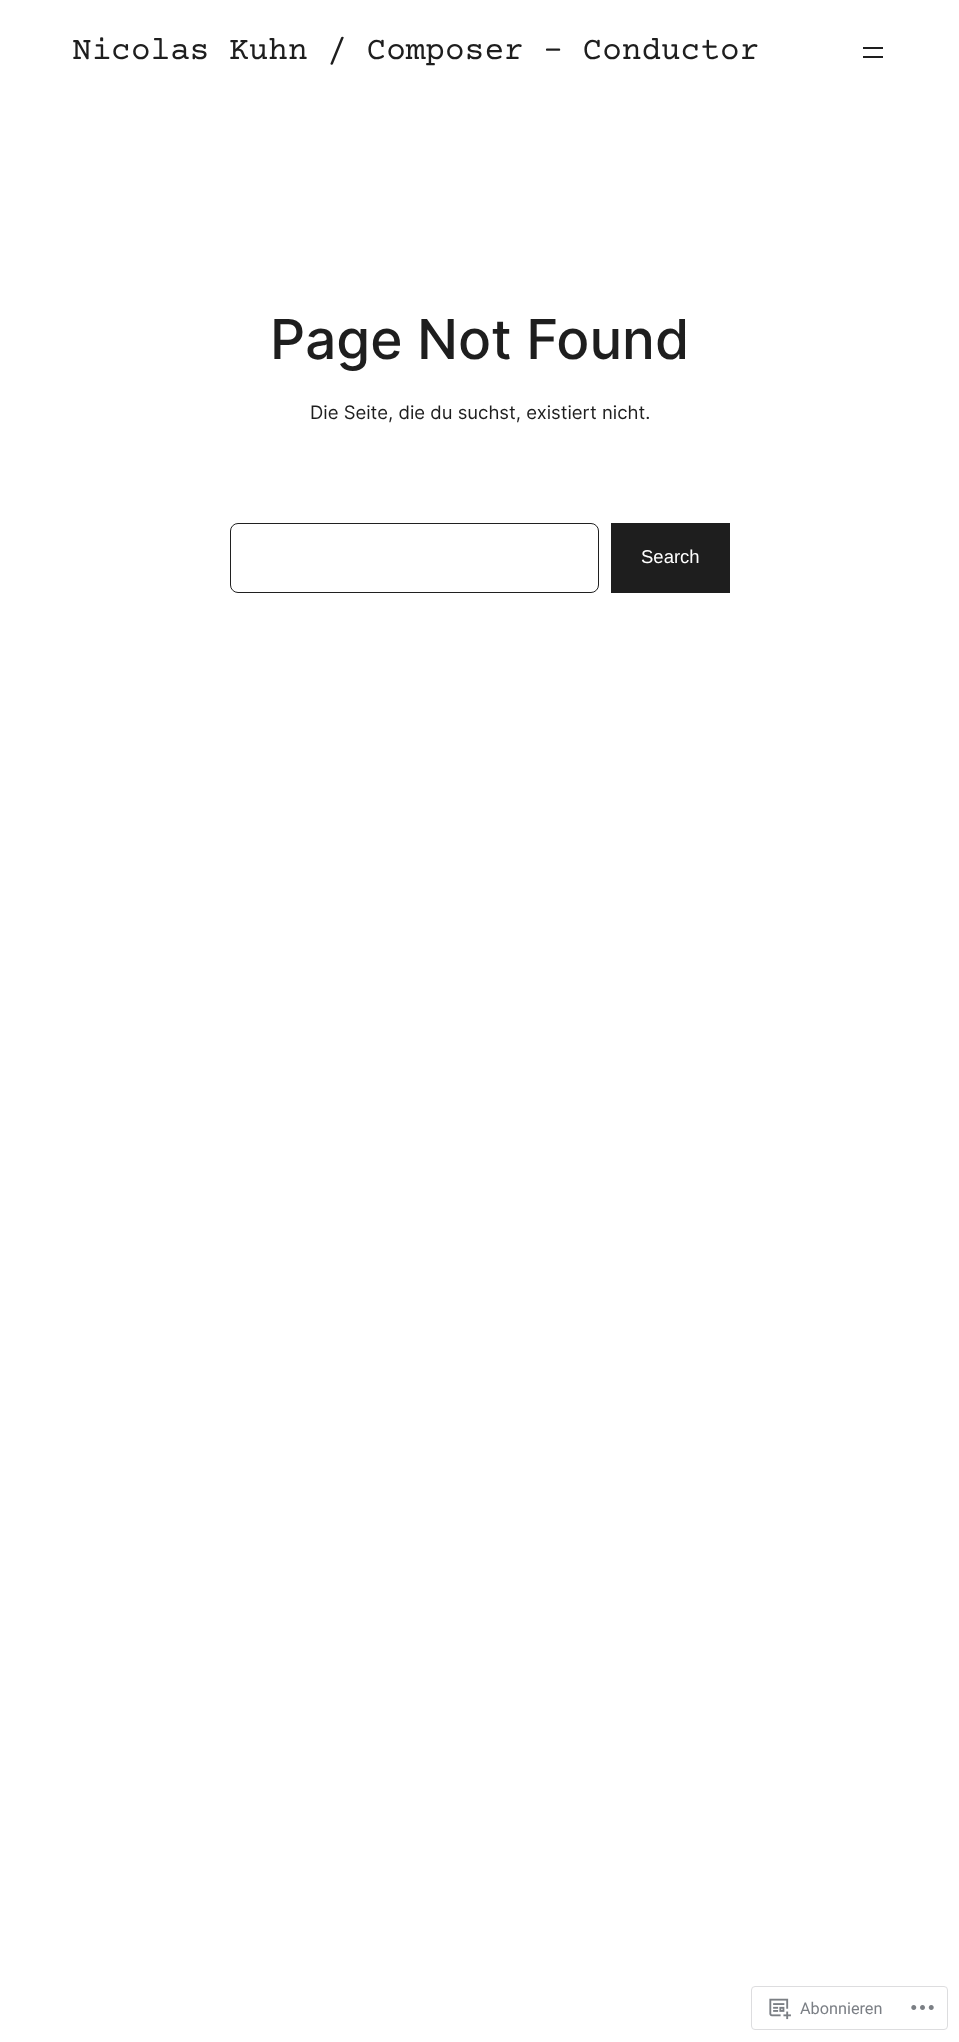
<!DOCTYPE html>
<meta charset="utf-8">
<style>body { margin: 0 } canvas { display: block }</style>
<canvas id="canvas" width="959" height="2042"></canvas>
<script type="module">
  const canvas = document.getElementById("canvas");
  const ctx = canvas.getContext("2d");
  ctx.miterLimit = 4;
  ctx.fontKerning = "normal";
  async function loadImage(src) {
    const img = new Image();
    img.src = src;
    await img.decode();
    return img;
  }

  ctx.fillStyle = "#ffffff";
  ctx.fillRect(0, 0, 959, 2042);
  ctx.font = "32.75px Courier Prime";
  ctx.fillStyle = "#1e1e1e";
  ctx.fillText("Nicolas Kuhn / Composer – Conductor", 72, 59);
  ctx.fillRect(863, 47, 20, 2);
  ctx.fillRect(863, 56, 20, 2);
  ctx.font = "500 55px Inter";
  ctx.fillText("Page Not Found", 270, 359);
  ctx.font = "18.5px Inter";
  ctx.fillText("Die Seite, die du suchst, existiert nicht.", 310, 419);
  ctx.beginPath();
  ctx.roundRect(230.5, 523.5, 368, 69, 7.5);
  ctx.strokeStyle = "#202020";
  ctx.stroke();
  ctx.fillRect(611, 523, 119, 70);
  ctx.font = "18.5px Liberation Sans";
  ctx.fillStyle = "#ffffff";
  ctx.fillText("Search", 641, 563);
  ctx.beginPath();
  ctx.roundRect(751.5, 1986.5, 196, 43, 3.5);
  ctx.strokeStyle = "#dddddf";
  ctx.stroke();
  ctx.drawImage(await loadImage("img1.png"), 769, 1998, 22, 22);
  ctx.font = "16.25px Roboto";
  ctx.fillStyle = "#7b7f85";
  ctx.fillText("Abonnieren", 800, 2014);
  ctx.drawImage(await loadImage("img2.png"), 911, 2005, 23, 5);
</script>
